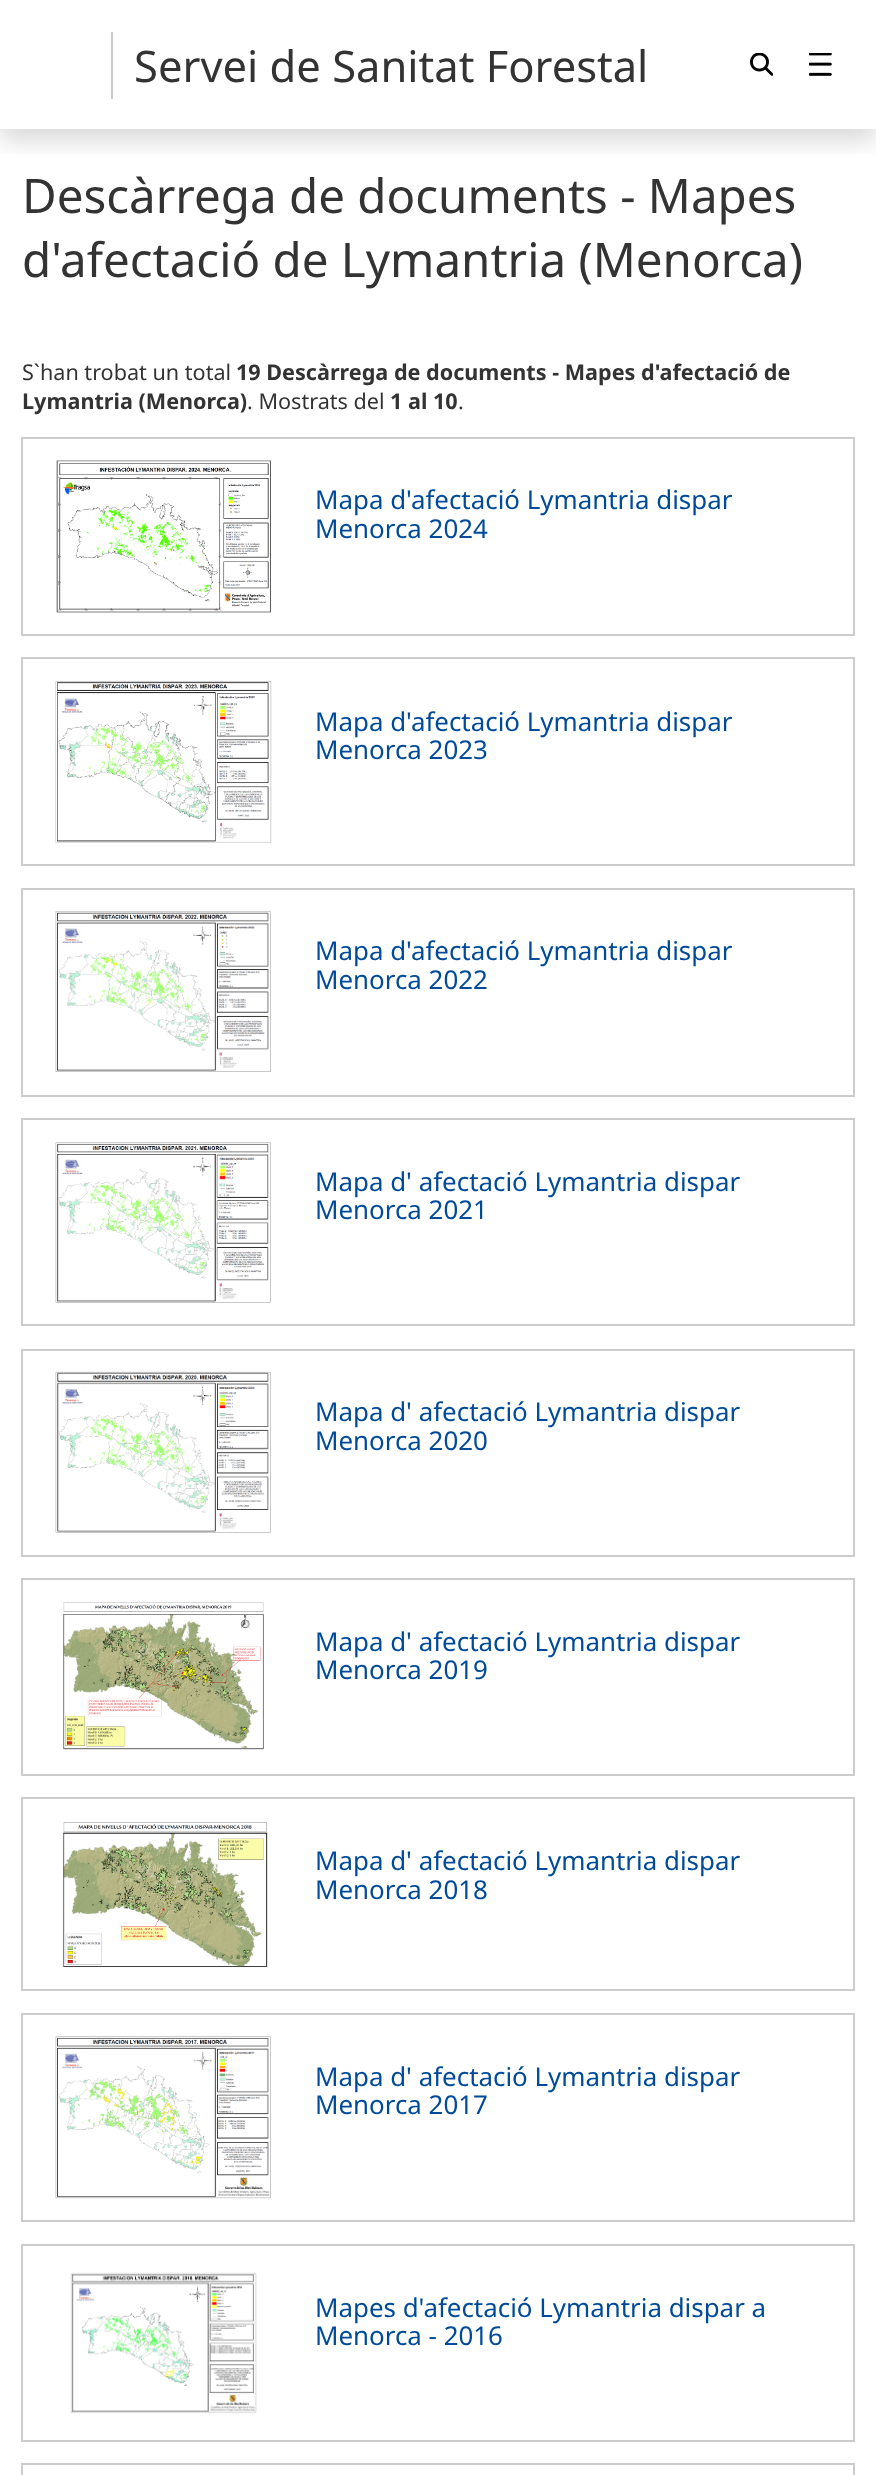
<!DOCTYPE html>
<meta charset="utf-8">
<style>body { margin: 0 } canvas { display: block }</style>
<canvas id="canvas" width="876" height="2475"></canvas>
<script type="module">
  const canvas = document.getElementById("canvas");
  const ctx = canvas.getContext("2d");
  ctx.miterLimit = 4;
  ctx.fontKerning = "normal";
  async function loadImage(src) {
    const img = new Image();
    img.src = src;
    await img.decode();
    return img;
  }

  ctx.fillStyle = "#ffffff";
  ctx.fillRect(0, 0, 876, 2475);
  ctx.save();
  ctx.beginPath();
  ctx.rect(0, 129, 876, 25);
  ctx.clip();
  ctx.fillStyle = "rgba(0, 0, 0, 0.15)";
  ctx.filter = "blur(12px)";
  ctx.beginPath();
  ctx.rect(0, 12, 876, 129);
  ctx.fill();
  ctx.filter = "none";
  ctx.restore();
  ctx.fillStyle = "#cccccc";
  ctx.fillRect(111, 32, 2, 67);
  ctx.font = "43.5px Noto Sans";
  ctx.fillStyle = "#333333";
  ctx.fillText("Servei de Sanitat Forestal", 134, 82);
  ctx.drawImage(await loadImage("img1.png"), 750, 53, 23, 23);
  ctx.drawImage(await loadImage("img2.png"), 809, 53, 23, 23);
  ctx.font = "47.5px Noto Sans";
  ctx.fillText("Descàrrega de documents - Mapes", 22, 213);
  ctx.fillText("d'afectació de Lymantria (Menorca)", 22, 277);
  ctx.font = "21.6px Noto Sans";
  ctx.fillText("S`han trobat un total", 22, 380);
  ctx.font = "bold 21.6px Noto Sans";
  ctx.fillText("19 Descàrrega de documents - Mapes d'afectació de", 236, 380);
  ctx.fillText("Lymantria (Menorca)", 22, 409);
  ctx.font = "21.6px Noto Sans";
  ctx.fillText(". Mostrats del", 247, 409);
  ctx.font = "bold 21.6px Noto Sans";
  ctx.fillText("1 al 10", 390, 409);
  ctx.font = "21.6px Noto Sans";
  ctx.fillText(".", 458, 409);
  ctx.strokeStyle = "#cccccc";
  ctx.lineWidth = 2;
  ctx.strokeRect(22, 438, 832, 197);
  ctx.drawImage(await loadImage("img3.png"), 56, 460, 215, 153);
  ctx.font = "25.9px Noto Sans";
  ctx.fillStyle = "#004b99";
  ctx.fillText("Mapa d'afectació Lymantria dispar", 315, 509);
  ctx.fillText("Menorca 2024", 315, 538);
  ctx.strokeRect(22, 658, 832, 207);
  ctx.drawImage(await loadImage("img4.png"), 55, 681, 217, 162);
  ctx.fillText("Mapa d'afectació Lymantria dispar", 315, 731);
  ctx.fillText("Menorca 2023", 315, 759);
  ctx.strokeRect(22, 889, 832, 207);
  ctx.drawImage(await loadImage("img5.png"), 55, 911, 216, 161);
  ctx.fillText("Mapa d'afectació Lymantria dispar", 315, 960);
  ctx.fillText("Menorca 2022", 315, 989);
  ctx.strokeRect(22, 1119, 832, 206);
  ctx.drawImage(await loadImage("img6.png"), 55, 1142, 216, 161);
  ctx.fillText("Mapa d' afectació Lymantria dispar", 315, 1191);
  ctx.fillText("Menorca 2021", 315, 1219);
  ctx.strokeRect(22, 1350, 832, 206);
  ctx.drawImage(await loadImage("img7.png"), 55, 1371, 216, 162);
  ctx.fillText("Mapa d' afectació Lymantria dispar", 315, 1421);
  ctx.fillText("Menorca 2020", 315, 1450);
  ctx.strokeRect(22, 1579, 832, 196);
  ctx.drawImage(await loadImage("img8.png"), 63, 1602, 201, 148);
  ctx.fillText("Mapa d' afectació Lymantria dispar", 315, 1651);
  ctx.fillText("Menorca 2019", 315, 1679);
  ctx.strokeRect(22, 1798, 832, 192);
  ctx.drawImage(await loadImage("img9.png"), 63, 1822, 205, 145);
  ctx.fillText("Mapa d' afectació Lymantria dispar", 315, 1870);
  ctx.fillText("Menorca 2018", 315, 1899);
  ctx.strokeRect(22, 2014, 832, 207);
  ctx.drawImage(await loadImage("img10.png"), 55, 2036, 216, 163);
  ctx.fillText("Mapa d' afectació Lymantria dispar", 315, 2086);
  ctx.fillText("Menorca 2017", 315, 2114);
  ctx.strokeRect(22, 2245, 832, 196);
  ctx.drawImage(await loadImage("img11.png"), 70, 2272, 187, 142);
  ctx.fillText("Mapes d'afectació Lymantria dispar a", 315, 2317);
  ctx.fillText("Menorca - 2016", 315, 2345);
  ctx.strokeRect(22, 2464, 832, 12);
</script>
